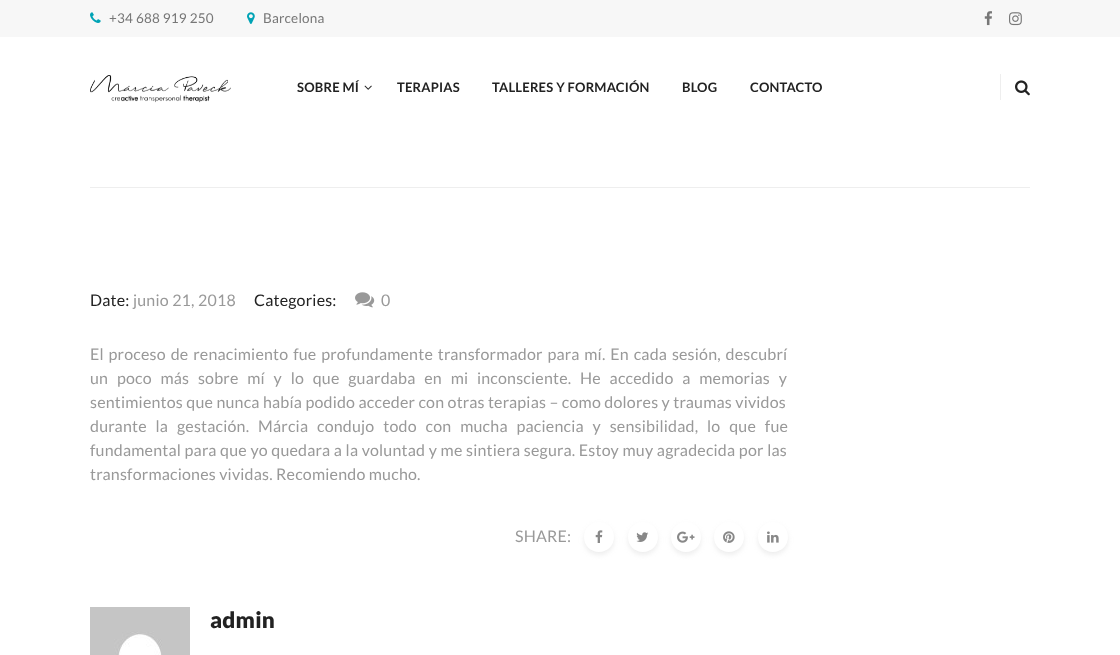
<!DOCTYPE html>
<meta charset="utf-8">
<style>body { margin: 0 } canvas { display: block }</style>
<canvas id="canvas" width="1120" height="655"></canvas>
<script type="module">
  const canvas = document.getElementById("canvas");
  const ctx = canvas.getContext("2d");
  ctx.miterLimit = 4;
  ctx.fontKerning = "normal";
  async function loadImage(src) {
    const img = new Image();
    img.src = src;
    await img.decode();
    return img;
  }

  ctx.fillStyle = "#ffffff";
  ctx.fillRect(0, 0, 1120, 655);
  ctx.fillStyle = "#f7f7f7";
  ctx.fillRect(0, 0, 1120, 37);
  ctx.drawImage(await loadImage("img1.png"), 90, 12, 11, 11);
  ctx.letterSpacing = "0.2px";
  ctx.font = "13.5px Lato";
  ctx.fillStyle = "#777777";
  ctx.fillText("+34 688 919 250", 109, 23);
  ctx.drawImage(await loadImage("img2.png"), 247, 12, 8, 12);
  ctx.fillText("Barcelona", 263, 23);
  ctx.drawImage(await loadImage("img3.png"), 984, 11, 8, 15);
  ctx.drawImage(await loadImage("img4.png"), 1009, 12, 13, 14);
  ctx.drawImage(await loadImage("img5.png"), 90, 75, 141, 28);
  ctx.font = "bold 13px Lato";
  ctx.fillStyle = "#222222";
  ctx.fillText("SOBRE MÍ", 297, 92);
  ctx.drawImage(await loadImage("img6.png"), 364, 85, 8, 5);
  ctx.fillText("TERAPIAS", 397, 92);
  ctx.fillText("TALLERES Y FORMACIÓN", 492, 92);
  ctx.fillText("BLOG", 682, 92);
  ctx.fillText("CONTACTO", 750, 92);
  ctx.fillStyle = "#eeeeee";
  ctx.fillRect(1000, 74, 1, 26);
  ctx.drawImage(await loadImage("img7.png"), 1015, 80, 15, 16);
  ctx.fillRect(90, 187, 940, 1);
  ctx.font = "16px Lato";
  ctx.fillStyle = "#222222";
  ctx.fillText("Date:", 90, 306);
  ctx.fillStyle = "#999999";
  ctx.fillText("junio 21, 2018", 133, 306);
  ctx.fillStyle = "#222222";
  ctx.fillText("Categories:", 254, 306);
  ctx.drawImage(await loadImage("img8.png"), 355, 292, 20, 16);
  ctx.fillStyle = "#999999";
  ctx.fillText("0", 381, 306);
  ctx.wordSpacing = "1.5px";
  ctx.fillText("El proceso de renacimiento fue profundamente transformador para mí. En cada sesión, descubrí", 90, 360);
  ctx.wordSpacing = "5.4px";
  ctx.fillText("un poco más sobre mí y lo que guardaba en mi inconsciente. He accedido a memorias y", 90, 384);
  ctx.wordSpacing = "0px";
  ctx.fillText("sentimientos que nunca había podido acceder con otras terapias – como dolores y traumas vividos", 90, 408);
  ctx.wordSpacing = "5.5px";
  ctx.fillText("durante la gestación. Márcia condujo todo con mucha paciencia y sensibilidad, lo que fue", 90, 432);
  ctx.wordSpacing = "0.25px";
  ctx.fillText("fundamental para que yo quedara a la voluntad y me sintiera segura. Estoy muy agradecida por las", 90, 456);
  ctx.wordSpacing = "0px";
  ctx.fillText("transformaciones vividas. Recomiendo mucho.", 90, 480);
  ctx.fillText("SHARE:", 515, 542);
  ctx.save();
  ctx.beginPath();
  ctx.moveTo(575, 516);
  ctx.lineTo(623, 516);
  ctx.lineTo(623, 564);
  ctx.lineTo(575, 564);
  ctx.closePath();
  ctx.moveTo(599, 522);
  ctx.bezierCurveTo(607.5, 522, 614, 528.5, 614, 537);
  ctx.bezierCurveTo(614, 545.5, 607.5, 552, 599, 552);
  ctx.bezierCurveTo(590.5, 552, 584, 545.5, 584, 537);
  ctx.bezierCurveTo(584, 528.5, 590.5, 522, 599, 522);
  ctx.closePath();
  ctx.clip("evenodd");
  ctx.fillStyle = "rgba(204, 204, 204, 0.35)";
  ctx.filter = "blur(2.5px)";
  ctx.beginPath();
  ctx.roundRect(584, 525, 30, 30, 15);
  ctx.fill();
  ctx.filter = "none";
  ctx.restore();
  ctx.drawImage(await loadImage("img9.png"), 595, 530, 8, 13);
  ctx.save();
  ctx.beginPath();
  ctx.moveTo(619, 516);
  ctx.lineTo(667, 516);
  ctx.lineTo(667, 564);
  ctx.lineTo(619, 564);
  ctx.closePath();
  ctx.moveTo(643, 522);
  ctx.bezierCurveTo(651.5, 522, 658, 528.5, 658, 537);
  ctx.bezierCurveTo(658, 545.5, 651.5, 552, 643, 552);
  ctx.bezierCurveTo(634.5, 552, 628, 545.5, 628, 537);
  ctx.bezierCurveTo(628, 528.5, 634.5, 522, 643, 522);
  ctx.closePath();
  ctx.clip("evenodd");
  ctx.fillStyle = "rgba(204, 204, 204, 0.35)";
  ctx.filter = "blur(2.5px)";
  ctx.beginPath();
  ctx.roundRect(628, 525, 30, 30, 15);
  ctx.fill();
  ctx.filter = "none";
  ctx.restore();
  ctx.drawImage(await loadImage("img10.png"), 636, 532, 13, 10);
  ctx.save();
  ctx.beginPath();
  ctx.moveTo(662, 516);
  ctx.lineTo(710, 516);
  ctx.lineTo(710, 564);
  ctx.lineTo(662, 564);
  ctx.closePath();
  ctx.moveTo(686, 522);
  ctx.bezierCurveTo(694.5, 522, 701, 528.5, 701, 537);
  ctx.bezierCurveTo(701, 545.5, 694.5, 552, 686, 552);
  ctx.bezierCurveTo(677.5, 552, 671, 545.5, 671, 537);
  ctx.bezierCurveTo(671, 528.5, 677.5, 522, 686, 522);
  ctx.closePath();
  ctx.clip("evenodd");
  ctx.fillStyle = "rgba(204, 204, 204, 0.35)";
  ctx.filter = "blur(2.5px)";
  ctx.beginPath();
  ctx.roundRect(671, 525, 30, 30, 15);
  ctx.fill();
  ctx.filter = "none";
  ctx.restore();
  ctx.drawImage(await loadImage("img11.png"), 677, 531, 18, 12);
  ctx.save();
  ctx.beginPath();
  ctx.moveTo(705, 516);
  ctx.lineTo(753, 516);
  ctx.lineTo(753, 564);
  ctx.lineTo(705, 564);
  ctx.closePath();
  ctx.moveTo(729, 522);
  ctx.bezierCurveTo(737.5, 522, 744, 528.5, 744, 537);
  ctx.bezierCurveTo(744, 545.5, 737.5, 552, 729, 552);
  ctx.bezierCurveTo(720.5, 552, 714, 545.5, 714, 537);
  ctx.bezierCurveTo(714, 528.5, 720.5, 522, 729, 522);
  ctx.closePath();
  ctx.clip("evenodd");
  ctx.fillStyle = "rgba(204, 204, 204, 0.35)";
  ctx.filter = "blur(2.5px)";
  ctx.beginPath();
  ctx.roundRect(714, 525, 30, 30, 15);
  ctx.fill();
  ctx.filter = "none";
  ctx.restore();
  ctx.drawImage(await loadImage("img12.png"), 723, 531, 12, 12);
  ctx.save();
  ctx.beginPath();
  ctx.moveTo(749, 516);
  ctx.lineTo(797, 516);
  ctx.lineTo(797, 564);
  ctx.lineTo(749, 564);
  ctx.closePath();
  ctx.moveTo(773, 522);
  ctx.bezierCurveTo(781.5, 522, 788, 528.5, 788, 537);
  ctx.bezierCurveTo(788, 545.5, 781.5, 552, 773, 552);
  ctx.bezierCurveTo(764.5, 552, 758, 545.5, 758, 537);
  ctx.bezierCurveTo(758, 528.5, 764.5, 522, 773, 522);
  ctx.closePath();
  ctx.clip("evenodd");
  ctx.fillStyle = "rgba(204, 204, 204, 0.35)";
  ctx.filter = "blur(2.5px)";
  ctx.beginPath();
  ctx.roundRect(758, 525, 30, 30, 15);
  ctx.fill();
  ctx.filter = "none";
  ctx.restore();
  ctx.drawImage(await loadImage("img13.png"), 767, 531, 12, 12);
  ctx.drawImage(await loadImage("img14.png"), 90, 607, 100, 48);
  ctx.font = "900 22.5px Lato";
  ctx.fillStyle = "#222222";
  ctx.fillText("admin", 210, 628);
</script>
